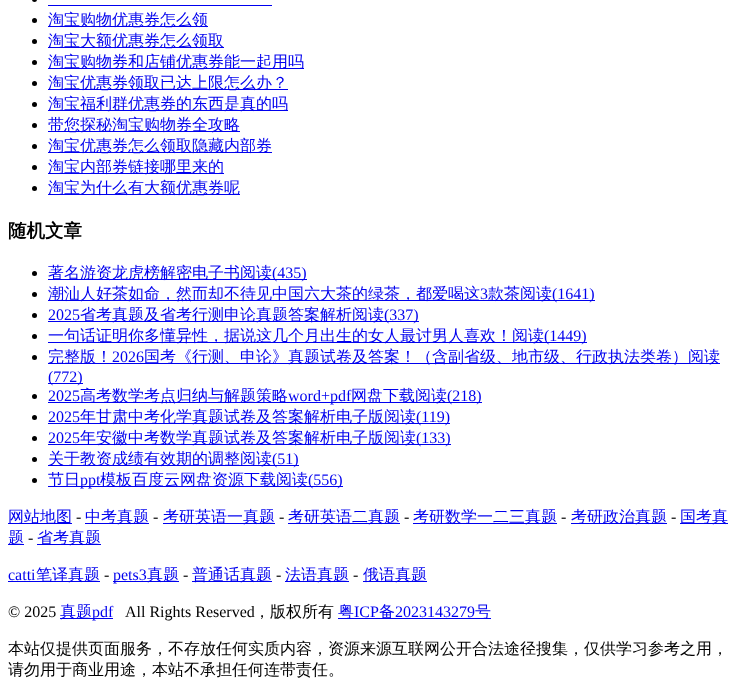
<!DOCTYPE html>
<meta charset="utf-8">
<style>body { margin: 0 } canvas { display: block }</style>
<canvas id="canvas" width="739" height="698"></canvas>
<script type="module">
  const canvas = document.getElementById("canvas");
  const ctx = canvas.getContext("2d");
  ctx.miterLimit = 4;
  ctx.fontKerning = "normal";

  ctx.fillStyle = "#ffffff";
  ctx.fillRect(0, 0, 739, 698);
  ctx.fillStyle = "#000000";
  ctx.beginPath();
  ctx.arc(34.5, -0.5, 2.5, 0, Math.PI * 2);
  ctx.fill();
  ctx.fillStyle = "#0000ee";
  ctx.fillRect(48, 5, 224, 1);
  ctx.fillStyle = "#000000";
  ctx.beginPath();
  ctx.arc(34.5, 20.5, 2.5, 0, Math.PI * 2);
  ctx.fill();
  ctx.fillStyle = "#0000ee";
  ctx.fillRect(48, 26, 160, 1);
  ctx.font = "500 16px WenQuanYi Zen Hei";
  ctx.fillText("淘宝购物优惠券怎么领", 48, 25);
  ctx.fillStyle = "#000000";
  ctx.beginPath();
  ctx.arc(34.5, 41.5, 2.5, 0, Math.PI * 2);
  ctx.fill();
  ctx.fillStyle = "#0000ee";
  ctx.fillRect(48, 47, 176, 1);
  ctx.fillText("淘宝大额优惠券怎么领取", 48, 46);
  ctx.fillStyle = "#000000";
  ctx.beginPath();
  ctx.arc(34.5, 62.5, 2.5, 0, Math.PI * 2);
  ctx.fill();
  ctx.fillStyle = "#0000ee";
  ctx.fillRect(48, 68, 256, 1);
  ctx.fillText("淘宝购物券和店铺优惠券能一起用吗", 48, 67);
  ctx.fillStyle = "#000000";
  ctx.beginPath();
  ctx.arc(34.5, 83.5, 2.5, 0, Math.PI * 2);
  ctx.fill();
  ctx.fillStyle = "#0000ee";
  ctx.fillRect(48, 89, 240, 1);
  ctx.fillText("淘宝优惠券领取已达上限怎么办？", 48, 88);
  ctx.fillStyle = "#000000";
  ctx.beginPath();
  ctx.arc(34.5, 104.5, 2.5, 0, Math.PI * 2);
  ctx.fill();
  ctx.fillStyle = "#0000ee";
  ctx.fillRect(48, 110, 240, 1);
  ctx.fillText("淘宝福利群优惠券的东西是真的吗", 48, 109);
  ctx.fillStyle = "#000000";
  ctx.beginPath();
  ctx.arc(34.5, 125.5, 2.5, 0, Math.PI * 2);
  ctx.fill();
  ctx.fillStyle = "#0000ee";
  ctx.fillRect(48, 131, 192, 1);
  ctx.fillText("带您探秘淘宝购物券全攻略", 48, 130);
  ctx.fillStyle = "#000000";
  ctx.beginPath();
  ctx.arc(34.5, 146.5, 2.5, 0, Math.PI * 2);
  ctx.fill();
  ctx.fillStyle = "#0000ee";
  ctx.fillRect(48, 152, 224, 1);
  ctx.fillText("淘宝优惠券怎么领取隐藏内部券", 48, 151);
  ctx.fillStyle = "#000000";
  ctx.beginPath();
  ctx.arc(34.5, 167.5, 2.5, 0, Math.PI * 2);
  ctx.fill();
  ctx.fillStyle = "#0000ee";
  ctx.fillRect(48, 173, 176, 1);
  ctx.fillText("淘宝内部券链接哪里来的", 48, 172);
  ctx.fillStyle = "#000000";
  ctx.beginPath();
  ctx.arc(34.5, 188.5, 2.5, 0, Math.PI * 2);
  ctx.fill();
  ctx.fillStyle = "#0000ee";
  ctx.fillRect(48, 194, 192, 1);
  ctx.fillText("淘宝为什么有大额优惠券呢", 48, 193);
  ctx.font = "bold 18.5px WenQuanYi Zen Hei";
  ctx.fillStyle = "#000000";
  ctx.fillText("随机文章", 8, 237);
  ctx.beginPath();
  ctx.arc(34.5, 273.5, 2.5, 0, Math.PI * 2);
  ctx.fill();
  ctx.fillStyle = "#0000ee";
  ctx.fillRect(48, 279, 259, 1);
  ctx.font = "500 16px WenQuanYi Zen Hei";
  ctx.fillText("著名游资龙虎榜解密电子书阅读", 48, 278);
  ctx.font = "16px Liberation Serif";
  ctx.fillText("(435)", 272, 278);
  ctx.fillStyle = "#000000";
  ctx.beginPath();
  ctx.arc(34.5, 294.5, 2.5, 0, Math.PI * 2);
  ctx.fill();
  ctx.fillStyle = "#0000ee";
  ctx.fillRect(48, 300, 547, 1);
  ctx.font = "500 16px WenQuanYi Zen Hei";
  ctx.fillText("潮汕人好茶如命，然而却不待见中国六大茶的绿茶，都爱喝这", 48, 299);
  ctx.font = "16px Liberation Serif";
  ctx.fillText("3", 480, 299);
  ctx.font = "500 16px WenQuanYi Zen Hei";
  ctx.fillText("款茶阅读", 488, 299);
  ctx.font = "16px Liberation Serif";
  ctx.fillText("(1641)", 552, 299);
  ctx.fillStyle = "#000000";
  ctx.beginPath();
  ctx.arc(34.5, 315.5, 2.5, 0, Math.PI * 2);
  ctx.fill();
  ctx.fillStyle = "#0000ee";
  ctx.fillText("2025", 48, 320);
  ctx.fillRect(48, 321, 371, 1);
  ctx.font = "500 16px WenQuanYi Zen Hei";
  ctx.fillText("省考真题及省考行测申论真题答案解析阅读", 80, 320);
  ctx.font = "16px Liberation Serif";
  ctx.fillText("(337)", 384, 320);
  ctx.fillStyle = "#000000";
  ctx.beginPath();
  ctx.arc(34.5, 336.5, 2.5, 0, Math.PI * 2);
  ctx.fill();
  ctx.fillStyle = "#0000ee";
  ctx.fillRect(48, 342, 539, 1);
  ctx.font = "500 16px WenQuanYi Zen Hei";
  ctx.fillText("一句话证明你多懂异性，据说这几个月出生的女人最讨男人喜欢！阅读", 48, 341);
  ctx.font = "16px Liberation Serif";
  ctx.fillText("(1449)", 544, 341);
  ctx.fillStyle = "#000000";
  ctx.beginPath();
  ctx.arc(34.5, 357.5, 2.5, 0, Math.PI * 2);
  ctx.fill();
  ctx.fillStyle = "#0000ee";
  ctx.fillRect(48, 363, 672, 1);
  ctx.font = "500 16px WenQuanYi Zen Hei";
  ctx.fillText("完整版！", 48, 362);
  ctx.font = "16px Liberation Serif";
  ctx.fillText("2026", 112, 362);
  ctx.font = "500 16px WenQuanYi Zen Hei";
  ctx.fillText("国考《行测、申论》真题试卷及答案！（含副省级、地市级、行政执法类卷）阅读", 144, 362);
  ctx.fillRect(48, 383, 35, 1);
  ctx.font = "16px Liberation Serif";
  ctx.fillText("(772)", 48, 382);
  ctx.fillStyle = "#000000";
  ctx.beginPath();
  ctx.arc(34.5, 396.5, 2.5, 0, Math.PI * 2);
  ctx.fill();
  ctx.fillStyle = "#0000ee";
  ctx.fillText("2025", 48, 401);
  ctx.fillRect(48, 402, 434, 1);
  ctx.font = "500 16px WenQuanYi Zen Hei";
  ctx.fillText("高考数学考点归纳与解题策略", 80, 401);
  ctx.font = "16px Liberation Serif";
  ctx.fillText("word+pdf", 288, 401);
  ctx.font = "500 16px WenQuanYi Zen Hei";
  ctx.fillText("网盘下载阅读", 351, 401);
  ctx.font = "16px Liberation Serif";
  ctx.fillText("(218)", 447, 401);
  ctx.fillStyle = "#000000";
  ctx.beginPath();
  ctx.arc(34.5, 417.5, 2.5, 0, Math.PI * 2);
  ctx.fill();
  ctx.fillStyle = "#0000ee";
  ctx.fillText("2025", 48, 422);
  ctx.fillRect(48, 423, 402, 1);
  ctx.font = "500 16px WenQuanYi Zen Hei";
  ctx.fillText("年甘肃中考化学真题试卷及答案解析电子版阅读", 80, 422);
  ctx.font = "16px Liberation Serif";
  ctx.fillText("(119)", 416, 422);
  ctx.fillStyle = "#000000";
  ctx.beginPath();
  ctx.arc(34.5, 438.5, 2.5, 0, Math.PI * 2);
  ctx.fill();
  ctx.fillStyle = "#0000ee";
  ctx.fillText("2025", 48, 443);
  ctx.fillRect(48, 444, 403, 1);
  ctx.font = "500 16px WenQuanYi Zen Hei";
  ctx.fillText("年安徽中考数学真题试卷及答案解析电子版阅读", 80, 443);
  ctx.font = "16px Liberation Serif";
  ctx.fillText("(133)", 416, 443);
  ctx.fillStyle = "#000000";
  ctx.beginPath();
  ctx.arc(34.5, 459.5, 2.5, 0, Math.PI * 2);
  ctx.fill();
  ctx.fillStyle = "#0000ee";
  ctx.fillRect(48, 465, 251, 1);
  ctx.font = "500 16px WenQuanYi Zen Hei";
  ctx.fillText("关于教资成绩有效期的调整阅读", 48, 464);
  ctx.font = "16px Liberation Serif";
  ctx.fillText("(51)", 272, 464);
  ctx.fillStyle = "#000000";
  ctx.beginPath();
  ctx.arc(34.5, 480.5, 2.5, 0, Math.PI * 2);
  ctx.fill();
  ctx.fillStyle = "#0000ee";
  ctx.fillRect(48, 486, 295, 1);
  ctx.font = "500 16px WenQuanYi Zen Hei";
  ctx.fillText("节日", 48, 485);
  ctx.font = "16px Liberation Serif";
  ctx.fillText("ppt", 80, 485);
  ctx.font = "500 16px WenQuanYi Zen Hei";
  ctx.fillText("模板百度云网盘资源下载阅读", 100, 485);
  ctx.font = "16px Liberation Serif";
  ctx.fillText("(556)", 308, 485);
  ctx.fillRect(8, 523, 64, 1);
  ctx.font = "500 16px WenQuanYi Zen Hei";
  ctx.fillText("网站地图", 8, 522);
  ctx.font = "16px Liberation Serif";
  ctx.fillStyle = "#000000";
  ctx.fillText("-", 76, 522);
  ctx.fillStyle = "#0000ee";
  ctx.fillRect(85, 523, 64, 1);
  ctx.font = "500 16px WenQuanYi Zen Hei";
  ctx.fillText("中考真题", 85, 522);
  ctx.font = "16px Liberation Serif";
  ctx.fillStyle = "#000000";
  ctx.fillText("-", 153, 522);
  ctx.fillStyle = "#0000ee";
  ctx.fillRect(163, 523, 112, 1);
  ctx.font = "500 16px WenQuanYi Zen Hei";
  ctx.fillText("考研英语一真题", 163, 522);
  ctx.font = "16px Liberation Serif";
  ctx.fillStyle = "#000000";
  ctx.fillText("-", 279, 522);
  ctx.fillStyle = "#0000ee";
  ctx.fillRect(288, 523, 112, 1);
  ctx.font = "500 16px WenQuanYi Zen Hei";
  ctx.fillText("考研英语二真题", 288, 522);
  ctx.font = "16px Liberation Serif";
  ctx.fillStyle = "#000000";
  ctx.fillText("-", 404, 522);
  ctx.fillStyle = "#0000ee";
  ctx.fillRect(413, 523, 144, 1);
  ctx.font = "500 16px WenQuanYi Zen Hei";
  ctx.fillText("考研数学一二三真题", 413, 522);
  ctx.font = "16px Liberation Serif";
  ctx.fillStyle = "#000000";
  ctx.fillText("-", 561, 522);
  ctx.fillStyle = "#0000ee";
  ctx.fillRect(571, 523, 96, 1);
  ctx.font = "500 16px WenQuanYi Zen Hei";
  ctx.fillText("考研政治真题", 571, 522);
  ctx.font = "16px Liberation Serif";
  ctx.fillStyle = "#000000";
  ctx.fillText("-", 671, 522);
  ctx.fillStyle = "#0000ee";
  ctx.fillRect(680, 523, 48, 1);
  ctx.font = "500 16px WenQuanYi Zen Hei";
  ctx.fillText("国考真", 680, 522);
  ctx.fillRect(8, 544, 16, 1);
  ctx.fillText("题", 8, 543);
  ctx.font = "16px Liberation Serif";
  ctx.fillStyle = "#000000";
  ctx.fillText("-", 28, 543);
  ctx.fillStyle = "#0000ee";
  ctx.fillRect(37, 544, 64, 1);
  ctx.font = "500 16px WenQuanYi Zen Hei";
  ctx.fillText("省考真题", 37, 543);
  ctx.font = "16px Liberation Serif";
  ctx.fillText("catti", 8, 580);
  ctx.fillRect(8, 581, 92, 1);
  ctx.font = "500 16px WenQuanYi Zen Hei";
  ctx.fillText("笔译真题", 36, 580);
  ctx.font = "16px Liberation Serif";
  ctx.fillStyle = "#000000";
  ctx.fillText("-", 104, 580);
  ctx.fillStyle = "#0000ee";
  ctx.fillRect(113, 581, 66, 1);
  ctx.fillText("pets3", 113, 580);
  ctx.font = "500 16px WenQuanYi Zen Hei";
  ctx.fillText("真题", 147, 580);
  ctx.font = "16px Liberation Serif";
  ctx.fillStyle = "#000000";
  ctx.fillText("-", 183, 580);
  ctx.fillStyle = "#0000ee";
  ctx.fillRect(192, 581, 80, 1);
  ctx.font = "500 16px WenQuanYi Zen Hei";
  ctx.fillText("普通话真题", 192, 580);
  ctx.font = "16px Liberation Serif";
  ctx.fillStyle = "#000000";
  ctx.fillText("-", 276, 580);
  ctx.fillStyle = "#0000ee";
  ctx.fillRect(285, 581, 64, 1);
  ctx.font = "500 16px WenQuanYi Zen Hei";
  ctx.fillText("法语真题", 285, 580);
  ctx.font = "16px Liberation Serif";
  ctx.fillStyle = "#000000";
  ctx.fillText("-", 353, 580);
  ctx.fillStyle = "#0000ee";
  ctx.fillRect(363, 581, 64, 1);
  ctx.font = "500 16px WenQuanYi Zen Hei";
  ctx.fillText("俄语真题", 363, 580);
  ctx.font = "16px Liberation Serif";
  ctx.fillStyle = "#000000";
  ctx.fillText("© 2025", 8, 617);
  ctx.fillStyle = "#0000ee";
  ctx.fillRect(60, 618, 53, 1);
  ctx.font = "500 16px WenQuanYi Zen Hei";
  ctx.fillText("真题", 60, 617);
  ctx.font = "16px Liberation Serif";
  ctx.fillText("pdf", 92, 617);
  ctx.fillStyle = "#000000";
  ctx.fillText("All Rights Reserved", 125, 617);
  ctx.font = "500 16px WenQuanYi Zen Hei";
  ctx.fillText("，版权所有", 254, 617);
  ctx.fillStyle = "#0000ee";
  ctx.fillRect(338, 618, 153, 1);
  ctx.fillText("粤", 338, 617);
  ctx.font = "16px Liberation Serif";
  ctx.fillText("ICP", 354, 617);
  ctx.font = "500 16px WenQuanYi Zen Hei";
  ctx.fillText("备", 379, 617);
  ctx.font = "16px Liberation Serif";
  ctx.fillText("2023143279", 395, 617);
  ctx.font = "500 16px WenQuanYi Zen Hei";
  ctx.fillText("号", 475, 617);
  ctx.fillStyle = "#000000";
  ctx.fillText("本站仅提供页面服务，不存放任何实质内容，资源来源互联网公开合法途径搜集，仅供学习参考之用，", 8, 654);
  ctx.fillText("请勿用于商业用途，本站不承担任何连带责任。", 8, 675);
</script>
